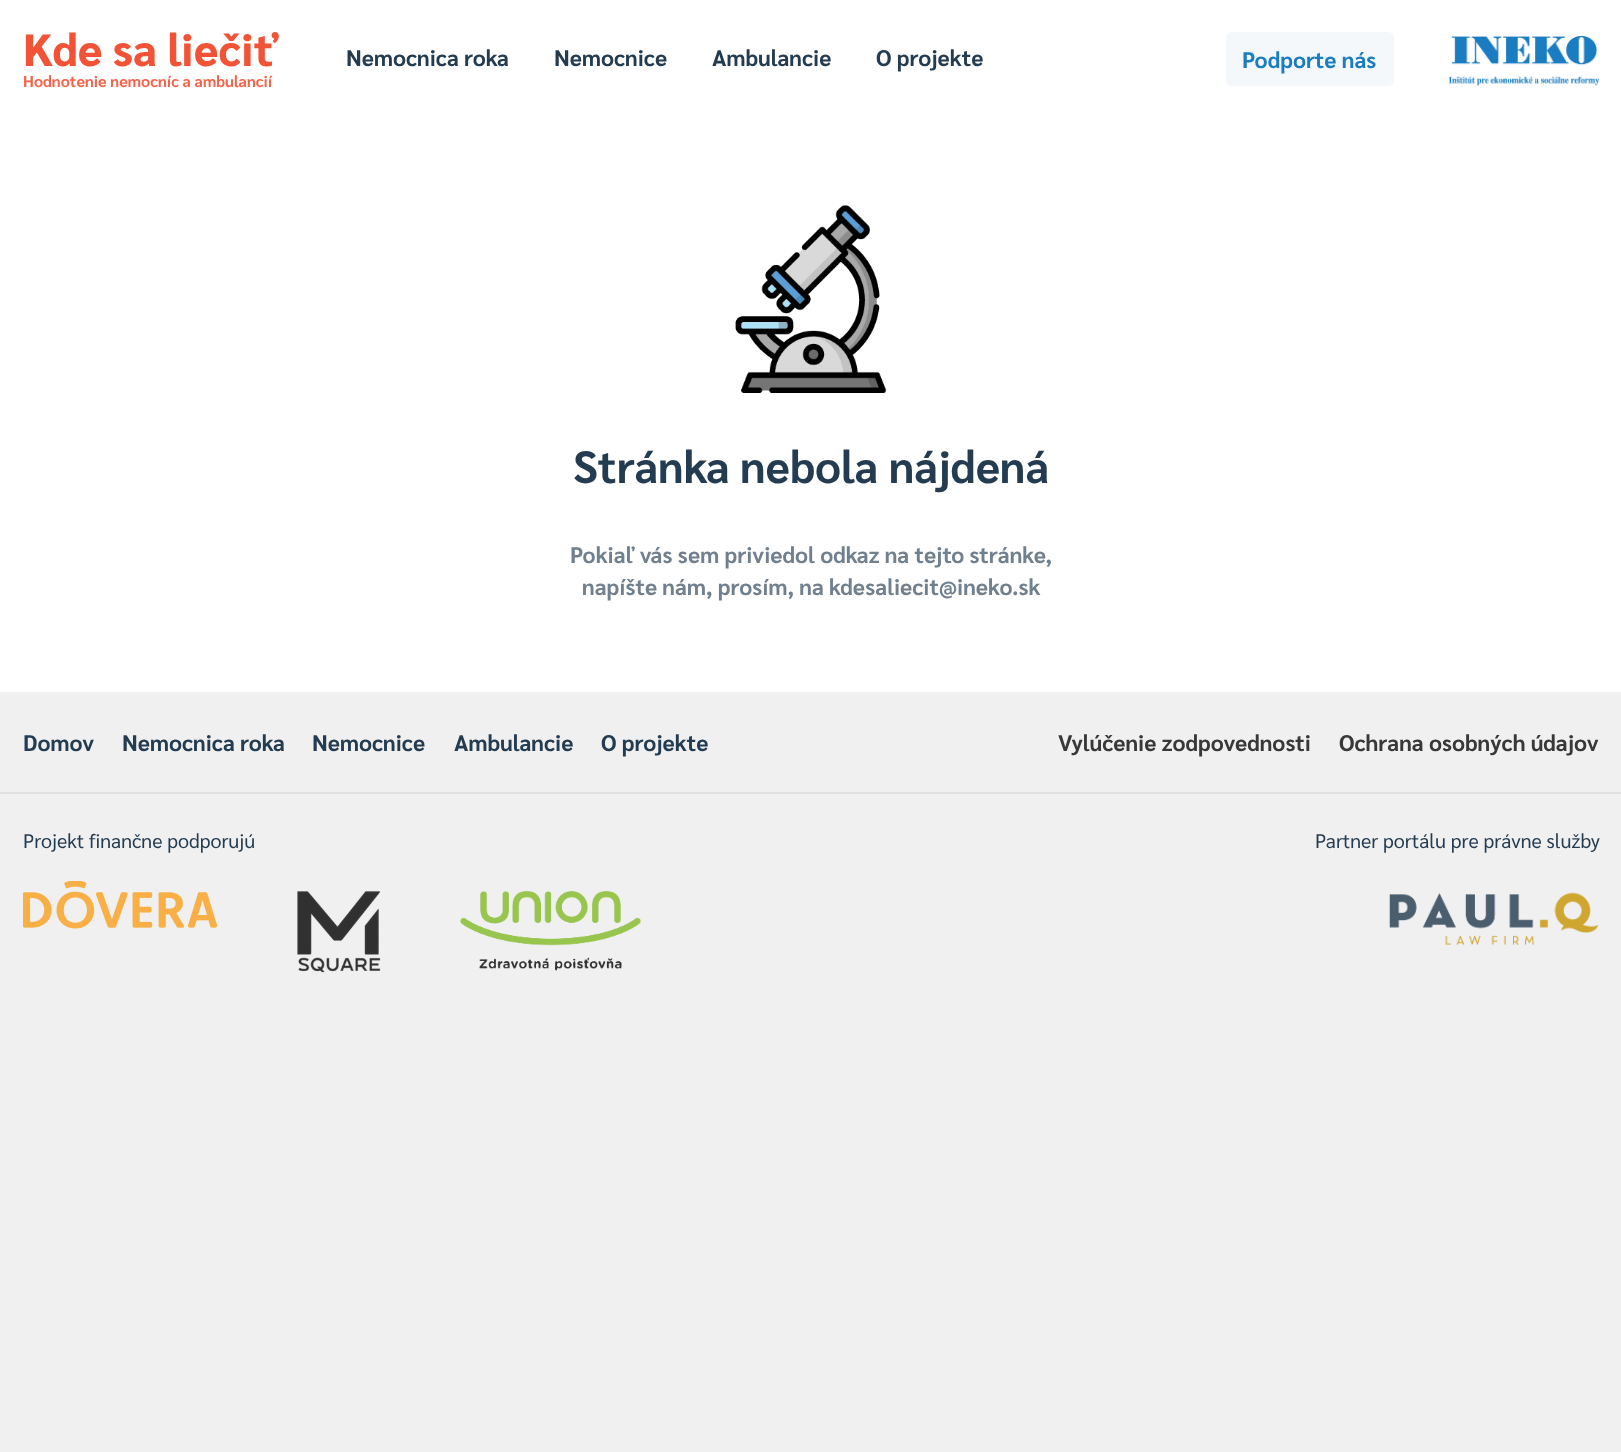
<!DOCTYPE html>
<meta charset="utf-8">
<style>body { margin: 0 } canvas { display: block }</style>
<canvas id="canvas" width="1621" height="1452"></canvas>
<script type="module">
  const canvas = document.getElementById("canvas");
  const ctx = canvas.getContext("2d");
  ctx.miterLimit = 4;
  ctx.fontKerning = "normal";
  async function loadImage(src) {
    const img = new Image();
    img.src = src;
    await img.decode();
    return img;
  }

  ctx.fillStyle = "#f0f0f0";
  ctx.fillRect(0, 0, 1621, 1452);
  ctx.fillStyle = "#ffffff";
  ctx.fillRect(0, 0, 1621, 692);
  ctx.font = "800 45px Sarabun";
  ctx.fillStyle = "#f25336";
  ctx.fillText("Kde sa liečiť", 23, 66);
  ctx.font = "bold 15.75px Sarabun";
  ctx.fillStyle = "#f3644a";
  ctx.fillText("Hodnotenie nemocníc a ambulancií", 23, 87);
  ctx.font = "bold 22.5px Sarabun";
  ctx.fillStyle = "#243c51";
  ctx.fillText("Nemocnica roka", 346, 66);
  ctx.fillText("Nemocnice", 554, 66);
  ctx.fillText("Ambulancie", 712, 66);
  ctx.fillText("O projekte", 876, 66);
  ctx.fillStyle = "#f4f8fb";
  ctx.beginPath();
  ctx.roundRect(1226, 32, 168, 54, 6);
  ctx.fill();
  ctx.fillStyle = "#1b7dc1";
  ctx.fillText("Podporte nás", 1242, 68);
  ctx.drawImage(await loadImage("img1.png"), 1449, 36, 150, 50);
  ctx.drawImage(await loadImage("img2.png"), 735, 205, 152, 188);
  ctx.font = "bold 45px Sarabun";
  ctx.fillStyle = "#243c51";
  ctx.fillText("Stránka nebola nájdená", 573, 483);
  ctx.font = "bold 22.5px Sarabun";
  ctx.fillStyle = "#71808e";
  ctx.fillText("Pokiaľ vás sem priviedol odkaz na tejto stránke,", 570, 563);
  ctx.fillText("napíšte nám, prosím, na kdesaliecit@ineko.sk", 582, 595);
  ctx.fillStyle = "#243c51";
  ctx.fillText("Domov", 23, 751);
  ctx.fillText("Nemocnica roka", 122, 751);
  ctx.fillText("Nemocnice", 312, 751);
  ctx.fillText("Ambulancie", 454, 751);
  ctx.fillText("O projekte", 601, 751);
  ctx.fillStyle = "#383838";
  ctx.fillText("Vylúčenie zodpovednosti", 1058, 751);
  ctx.fillText("Ochrana osobných údajov", 1339, 751);
  ctx.fillStyle = "#e0e0e0";
  ctx.fillRect(0, 792, 1621, 2);
  ctx.font = "19.75px Sarabun";
  ctx.fillStyle = "#243c51";
  ctx.fillText("Projekt finančne podporujú", 23, 848);
  ctx.drawImage(await loadImage("img3.png"), 23, 881, 195, 48);
  ctx.drawImage(await loadImage("img4.png"), 297, 891, 84, 82);
  ctx.drawImage(await loadImage("img5.png"), 460, 891, 181, 80);
  ctx.fillText("Partner portálu pre právne služby", 1315, 848);
  ctx.drawImage(await loadImage("img6.png"), 1389, 892, 210, 53);
</script>
